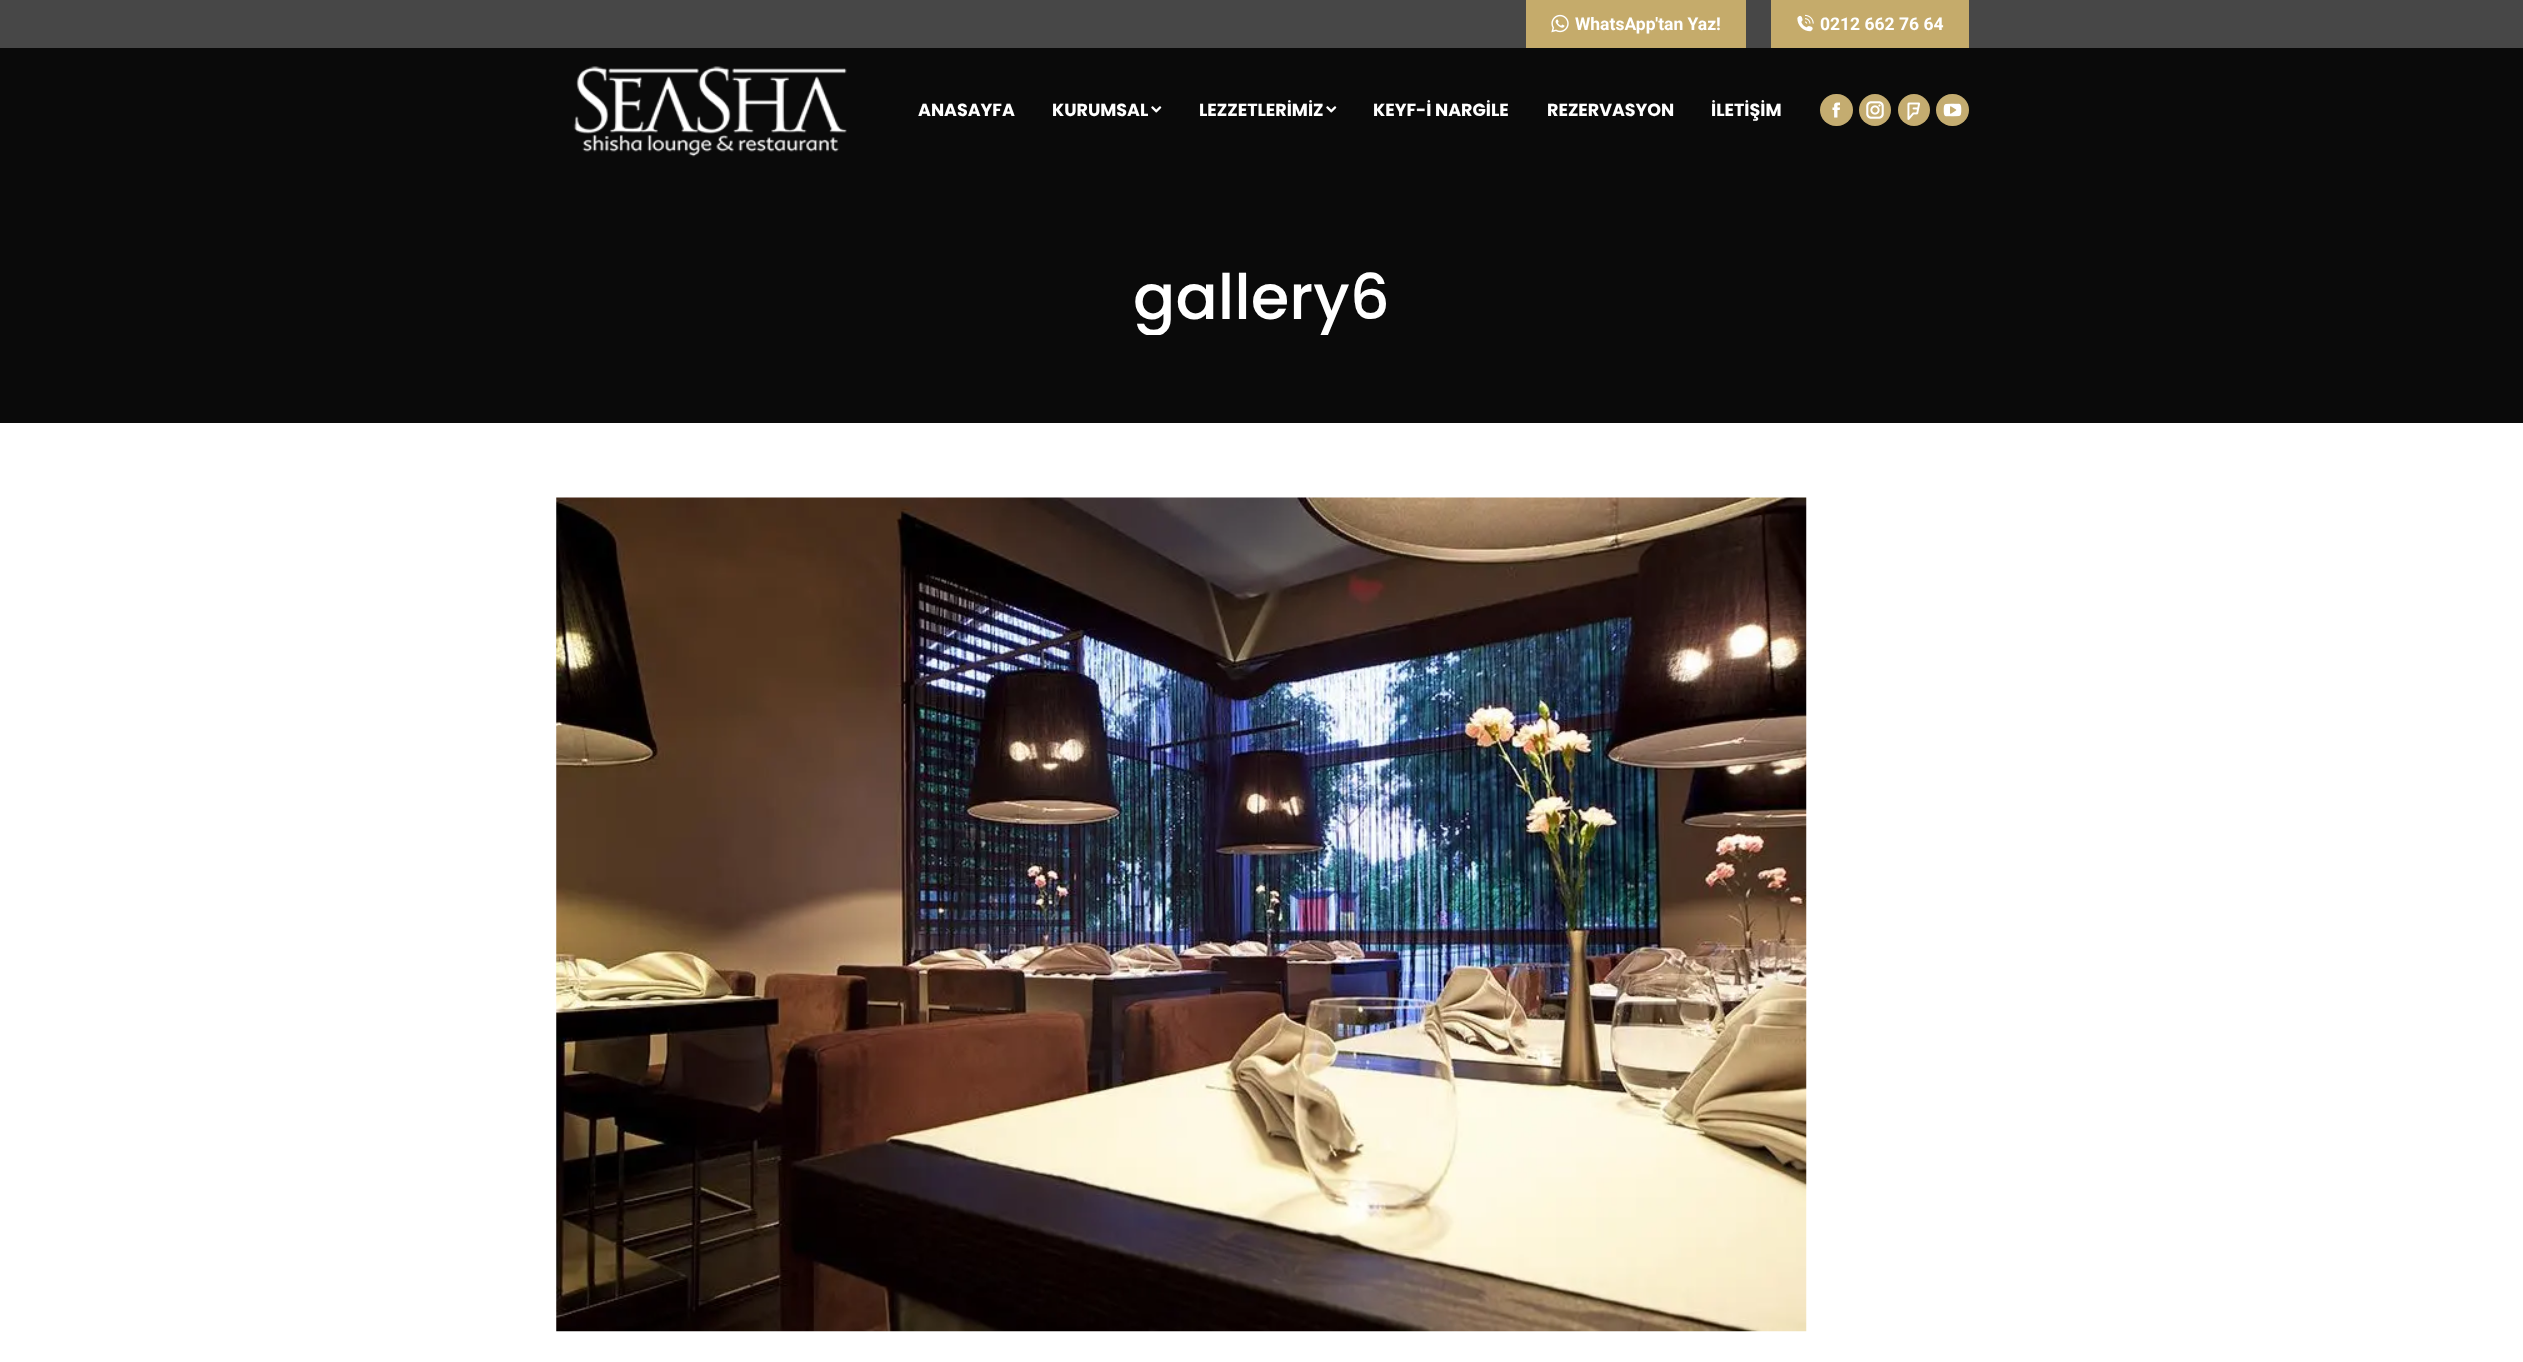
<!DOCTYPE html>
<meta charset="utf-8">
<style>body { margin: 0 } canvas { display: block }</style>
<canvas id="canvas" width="2523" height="1362"></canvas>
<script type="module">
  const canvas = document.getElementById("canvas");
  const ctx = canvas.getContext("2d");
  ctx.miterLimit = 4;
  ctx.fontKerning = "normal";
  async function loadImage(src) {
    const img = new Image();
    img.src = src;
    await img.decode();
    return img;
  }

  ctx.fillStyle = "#ffffff";
  ctx.fillRect(0, 0, 2523, 1362);
  ctx.fillStyle = "#474747";
  ctx.fillRect(0, 0, 2523, 48);
  ctx.fillStyle = "#c5ab6b";
  ctx.fillRect(1526, 0, 220, 48);
  ctx.drawImage(await loadImage("img1.png"), 1551, 14, 18, 19);
  ctx.font = "bold 17.5px Roboto";
  ctx.fillStyle = "#ffffff";
  ctx.fillText("WhatsApp'tan Yaz!", 1575, 30);
  ctx.fillStyle = "#c5ab6b";
  ctx.fillRect(1771, 0, 198, 48);
  ctx.drawImage(await loadImage("img2.png"), 1797, 14, 17, 18);
  ctx.fillStyle = "#ffffff";
  ctx.fillText("0212 662 76 64", 1820, 30);
  ctx.fillStyle = "#0a0a0a";
  ctx.fillRect(0, 48, 2523, 375);
  ctx.drawImage(await loadImage("img3.png"), 573, 66, 274, 91);
  ctx.font = "bold 17.5px Poppins";
  ctx.fillStyle = "#ffffff";
  ctx.fillText("ANASAYFA", 918, 116);
  ctx.fillText("KURUMSAL", 1052, 116);
  ctx.drawImage(await loadImage("img4.png"), 1151, 106, 11, 7);
  ctx.fillText("LEZZETLERİMİZ", 1199, 116);
  ctx.drawImage(await loadImage("img4.png"), 1326, 106, 11, 7);
  ctx.fillText("KEYF-İ NARGİLE", 1373, 116);
  ctx.fillText("REZERVASYON", 1547, 116);
  ctx.fillText("İLETİŞİM", 1711, 116);
  ctx.fillStyle = "#c4ac70";
  ctx.beginPath();
  ctx.roundRect(1820, 94, 33, 32, 16);
  ctx.fill();
  ctx.drawImage(await loadImage("img5.png"), 1832, 102, 8, 16);
  ctx.beginPath();
  ctx.arc(1875, 110, 16, 0, Math.PI * 2);
  ctx.fill();
  ctx.drawImage(await loadImage("img6.png"), 1866, 101, 18, 18);
  ctx.beginPath();
  ctx.arc(1914, 110, 16, 0, Math.PI * 2);
  ctx.fill();
  ctx.drawImage(await loadImage("img7.png"), 1907, 102, 13, 18);
  ctx.beginPath();
  ctx.roundRect(1936, 94, 33, 32, 16);
  ctx.fill();
  ctx.drawImage(await loadImage("img8.png"), 1943, 103, 19, 14);
  ctx.save();
  ctx.beginPath();
  ctx.rect(1134, 260, 256, 75);
  ctx.clip();
  ctx.font = "500 62.5px Poppins";
  ctx.fillStyle = "#ffffff";
  ctx.fillText("gallery6", 1133, 319);
  ctx.restore();
  ctx.drawImage(await loadImage("img9.png"), 556, 497, 1251, 835);
</script>
